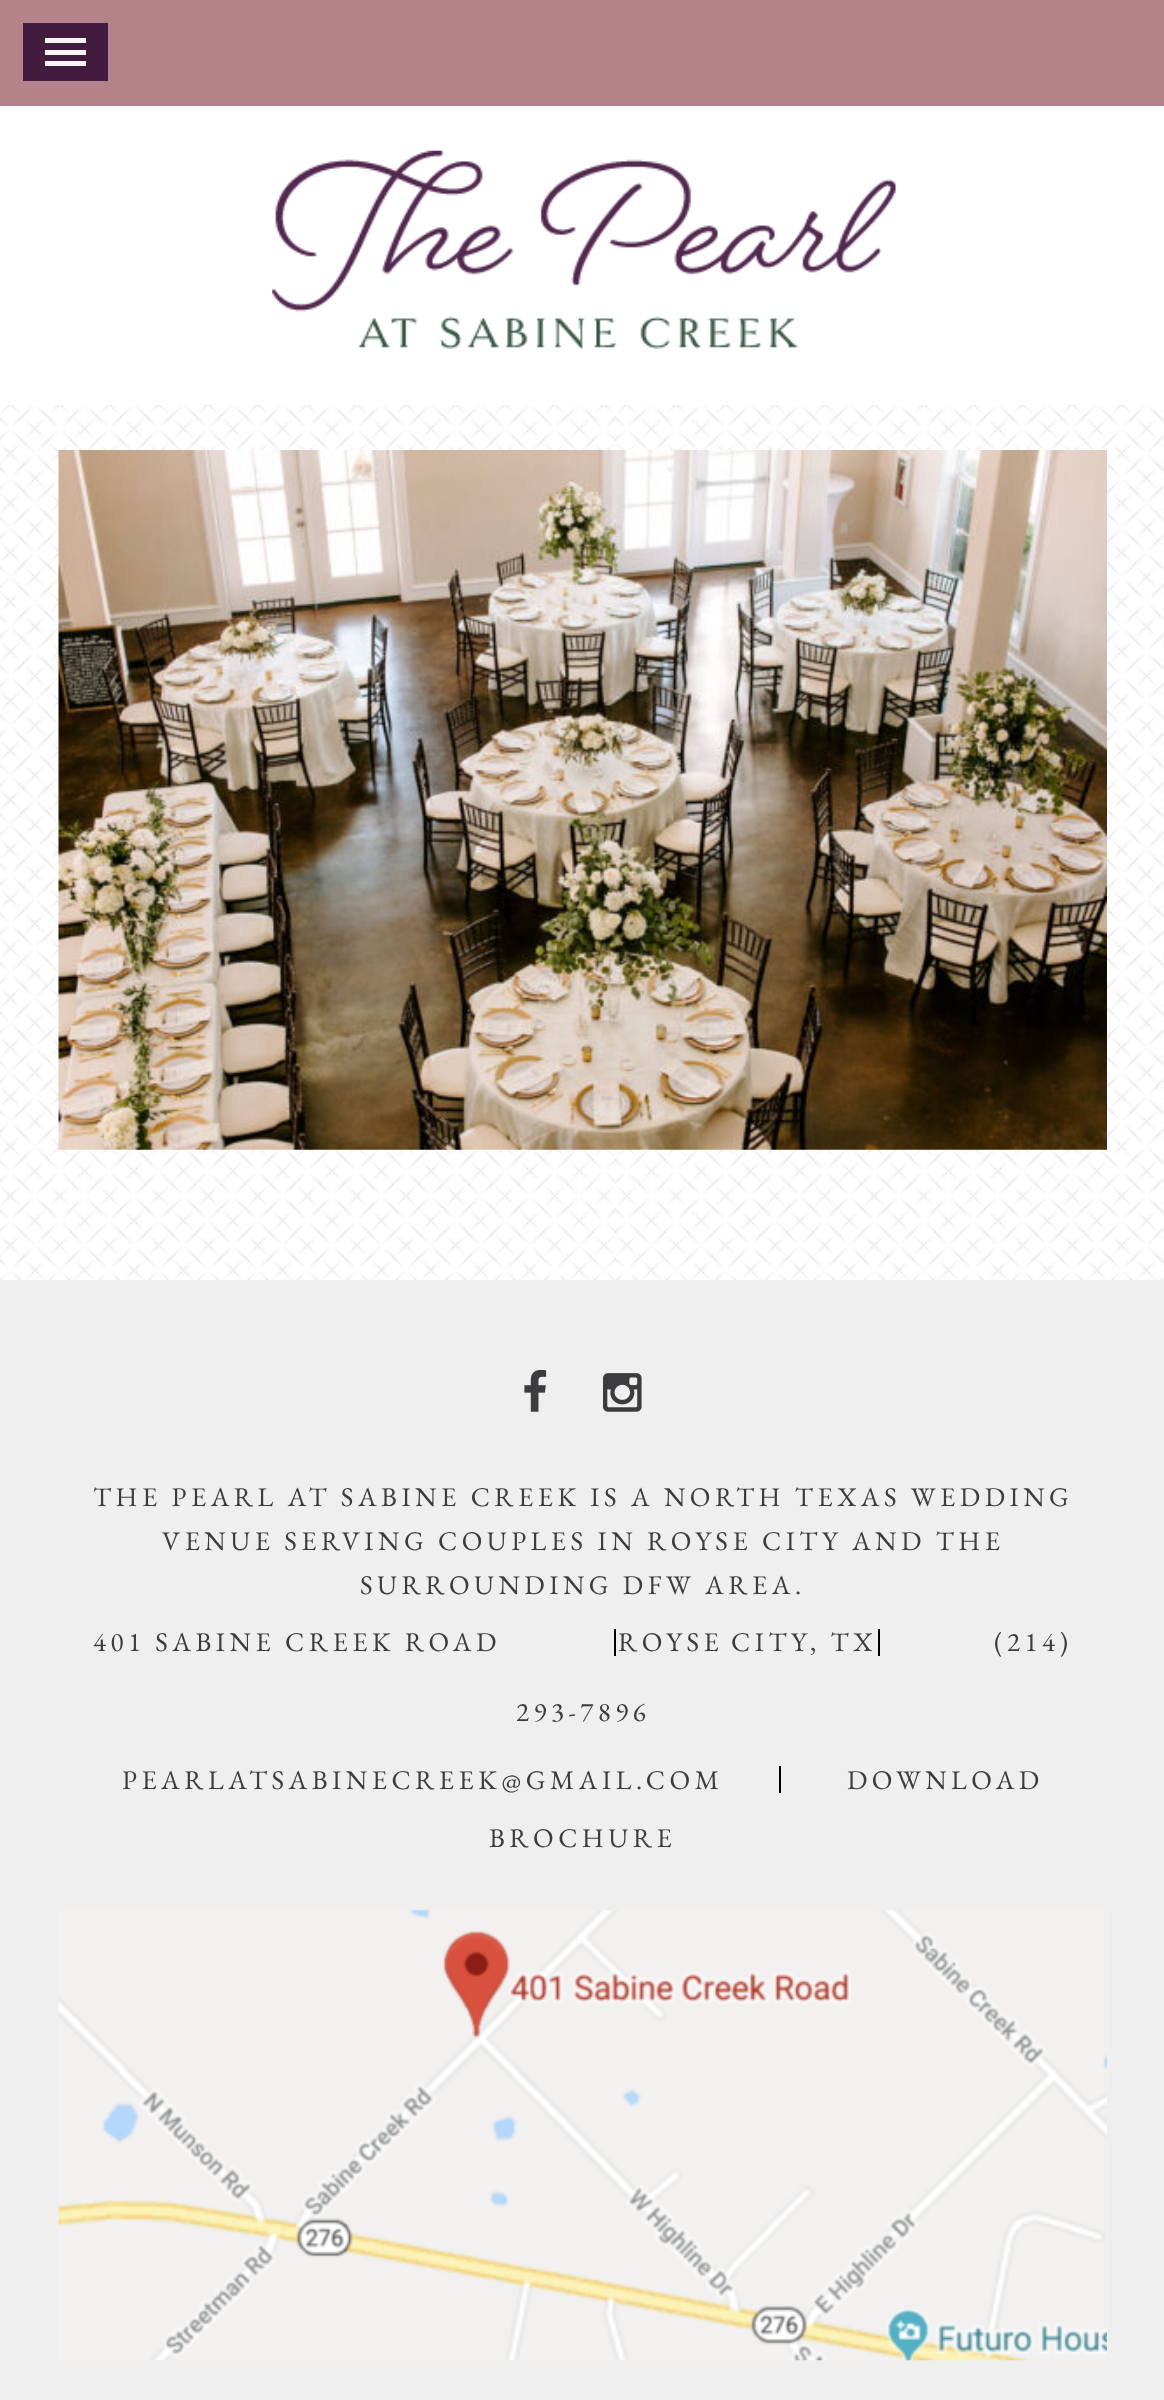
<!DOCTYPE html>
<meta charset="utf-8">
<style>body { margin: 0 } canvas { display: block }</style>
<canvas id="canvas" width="1164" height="2400"></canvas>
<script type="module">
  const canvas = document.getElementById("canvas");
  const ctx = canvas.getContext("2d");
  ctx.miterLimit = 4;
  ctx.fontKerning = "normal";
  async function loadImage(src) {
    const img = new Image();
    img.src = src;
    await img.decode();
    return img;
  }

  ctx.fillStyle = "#ffffff";
  ctx.fillRect(0, 0, 1164, 2400);
  ctx.drawImage(await loadImage("img1.png"), 0, 405, 1164, 875);
  ctx.fillStyle = "#b58289";
  ctx.fillRect(0, 0, 1164, 106);
  ctx.fillStyle = "#411c3e";
  ctx.fillRect(23, 23, 85, 58);
  ctx.fillStyle = "#f5f5f5";
  ctx.fillRect(45, 38, 41, 5);
  ctx.fillRect(45, 50, 41, 5);
  ctx.fillRect(45, 61, 41, 5);
  ctx.drawImage(await loadImage("img2.png"), 272, 150, 624, 199);
  ctx.drawImage(await loadImage("img3.png"), 58, 450, 1049, 700);
  ctx.fillStyle = "#efefef";
  ctx.fillRect(0, 1280, 1164, 1120);
  ctx.drawImage(await loadImage("img4.png"), 524, 1369, 23, 43);
  ctx.drawImage(await loadImage("img5.png"), 603, 1373, 39, 39);
  ctx.letterSpacing = "4.5px";
  ctx.font = "27px EB Garamond";
  ctx.fillStyle = "#3c3c3e";
  ctx.fillText("THE PEARL AT SABINE CREEK IS A NORTH TEXAS WEDDING", 93, 1506);
  ctx.fillText("VENUE SERVING COUPLES IN ROYSE CITY AND THE", 162, 1550);
  ctx.fillText("SURROUNDING DFW AREA.", 360, 1594);
  ctx.fillText("401 SABINE CREEK ROAD", 93, 1651);
  ctx.wordSpacing = "-2px";
  ctx.fillText("ROYSE CITY", 618, 1651);
  ctx.fillStyle = "#000000";
  ctx.fillRect(614, 1629, 2, 27);
  ctx.wordSpacing = "0px";
  ctx.fillStyle = "#3c3c3e";
  ctx.fillText(", TX", 810, 1651);
  ctx.fillStyle = "#000000";
  ctx.fillRect(878, 1629, 2, 27);
  ctx.fillStyle = "#3c3c3e";
  ctx.fillText("(214)", 994, 1651);
  ctx.fillText("293-7896", 516, 1721);
  ctx.fillText("PEARLATSABINECREEK@GMAIL.COM", 122, 1789);
  ctx.fillStyle = "#000000";
  ctx.fillRect(779, 1766, 2, 27);
  ctx.fillStyle = "#3c3c3e";
  ctx.fillText("DOWNLOAD", 847, 1789);
  ctx.fillText("BROCHURE", 489, 1847);
  ctx.drawImage(await loadImage("img6.png"), 58, 1910, 1049, 451);
</script>
